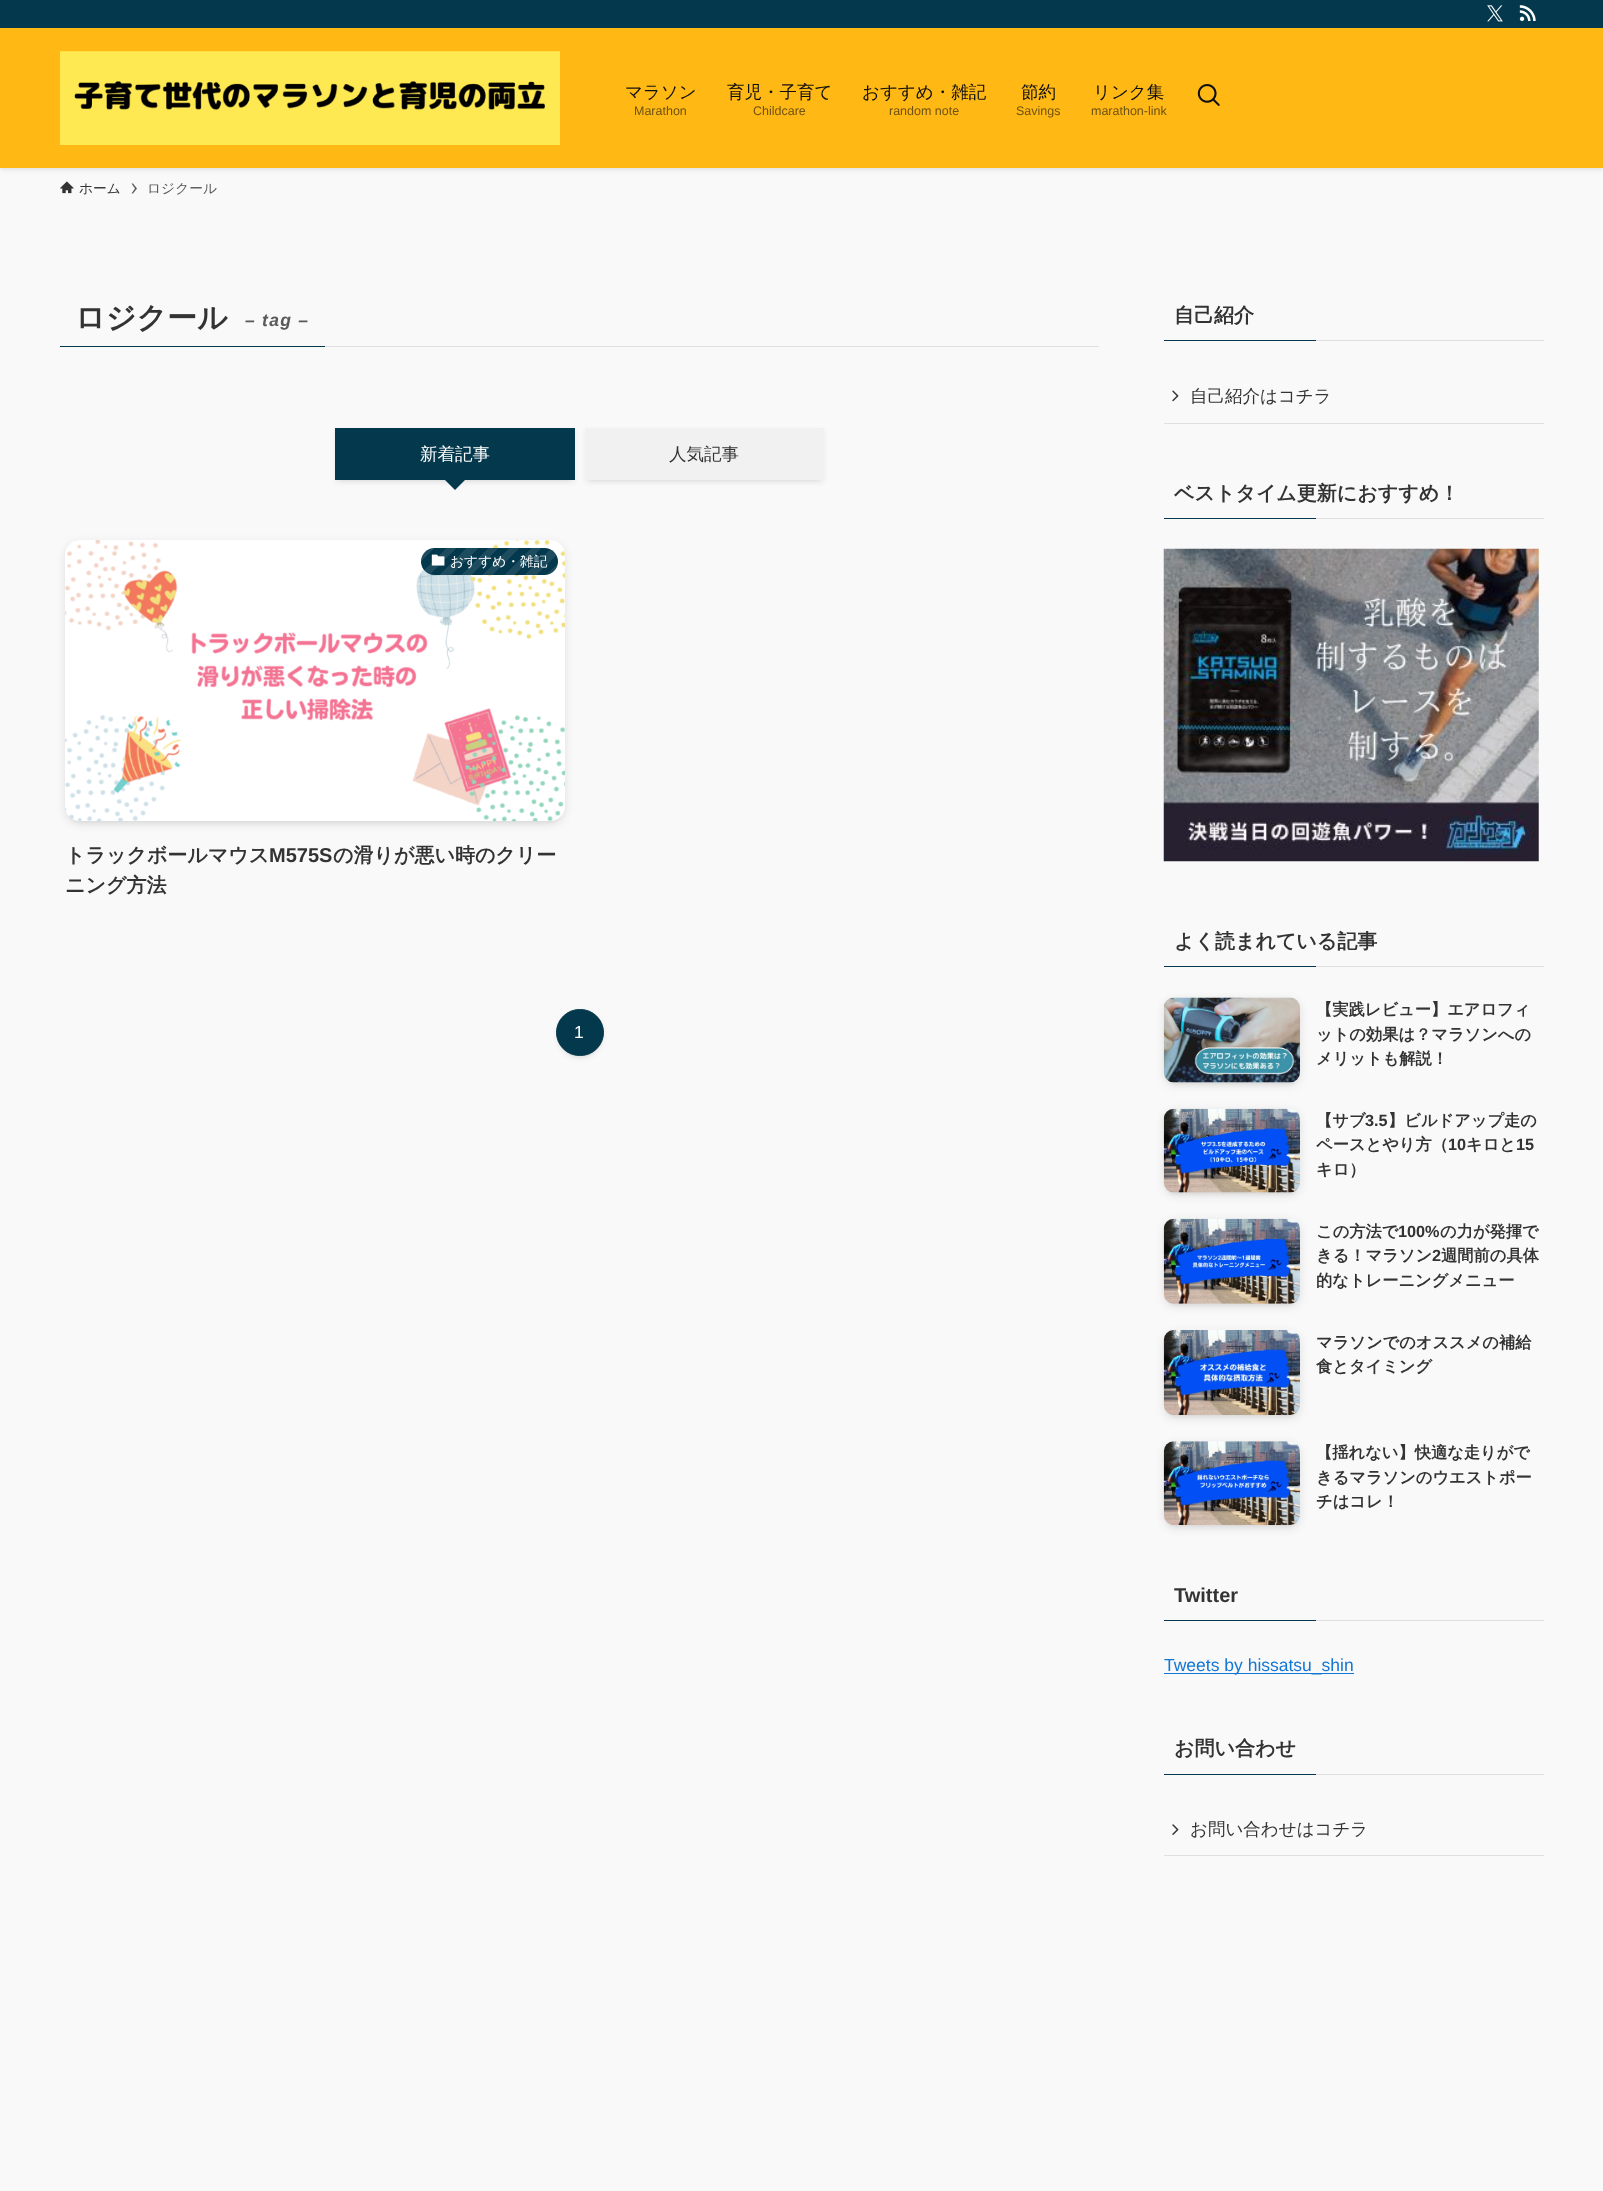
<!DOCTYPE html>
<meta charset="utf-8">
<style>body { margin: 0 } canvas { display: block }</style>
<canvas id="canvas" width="1603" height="2191"></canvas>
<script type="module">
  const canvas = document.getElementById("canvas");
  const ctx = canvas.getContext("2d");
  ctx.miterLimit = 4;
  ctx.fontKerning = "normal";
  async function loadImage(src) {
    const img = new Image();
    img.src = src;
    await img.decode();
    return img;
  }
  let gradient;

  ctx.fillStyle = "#f9f9f9";
  ctx.fillRect(0, 0, 1603, 2191);
  ctx.fillStyle = "rgba(0, 0, 0, 0.12)";
  ctx.filter = "blur(2.5px)";
  ctx.beginPath();
  ctx.rect(0, 1, 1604, 168);
  ctx.fill();
  ctx.filter = "none";
  ctx.fillStyle = "#ffb814";
  ctx.fillRect(0, 28, 1603, 140);
  ctx.fillStyle = "#04384c";
  ctx.fillRect(0, 0, 1603, 28);
  ctx.drawImage(await loadImage("img1.png"), 1487, 5, 16, 17);
  ctx.drawImage(await loadImage("img2.png"), 1519, 5, 17, 16);
  ctx.drawImage(await loadImage("img3.png"), 60, 51, 500, 94);
  ctx.font = "500 17.5px WenQuanYi Zen Hei";
  ctx.fillStyle = "#0f0f0f";
  ctx.fillText("マラソン", 625, 98);
  ctx.font = "12.5px Liberation Sans";
  ctx.fillStyle = "#6f5311";
  ctx.fillText("Marathon", 634, 115);
  ctx.font = "500 17.5px WenQuanYi Zen Hei";
  ctx.fillStyle = "#0f0f0f";
  ctx.fillText("育児・子育て", 727, 98);
  ctx.font = "12.5px Liberation Sans";
  ctx.fillStyle = "#6f5311";
  ctx.fillText("Childcare", 753, 115);
  ctx.font = "500 17.5px WenQuanYi Zen Hei";
  ctx.fillStyle = "#0f0f0f";
  ctx.fillText("おすすめ・雑記", 862, 98);
  ctx.font = "12.5px Liberation Sans";
  ctx.fillStyle = "#6f5311";
  ctx.fillText("random note", 889, 115);
  ctx.font = "500 17.5px WenQuanYi Zen Hei";
  ctx.fillStyle = "#0f0f0f";
  ctx.fillText("節約", 1021, 98);
  ctx.font = "12.5px Liberation Sans";
  ctx.fillStyle = "#6f5311";
  ctx.fillText("Savings", 1016, 115);
  ctx.font = "500 17.5px WenQuanYi Zen Hei";
  ctx.fillStyle = "#0f0f0f";
  ctx.fillText("リンク集", 1093, 98);
  ctx.font = "12.5px Liberation Sans";
  ctx.fillStyle = "#6f5311";
  ctx.fillText("marathon-link", 1091, 115);
  ctx.drawImage(await loadImage("img4.png"), 1197, 84, 23, 22);
  ctx.drawImage(await loadImage("img5.png"), 60, 181, 14, 13);
  ctx.font = "500 13.75px WenQuanYi Zen Hei";
  ctx.fillStyle = "#333333";
  ctx.fillText("ホーム", 79, 193);
  ctx.fillStyle = "#5a5a5a";
  ctx.beginPath();
  ctx.moveTo(133, 183.5);
  ctx.lineTo(131.5, 183.5);
  ctx.lineTo(135, 188.5);
  ctx.lineTo(131.5, 193.5);
  ctx.lineTo(133, 193.5);
  ctx.lineTo(137, 188.5);
  ctx.closePath();
  ctx.fill();
  ctx.fillText("ロジクール", 147, 193);
  ctx.fillStyle = "#e0e0e0";
  ctx.fillRect(325, 346, 774, 1);
  ctx.fillStyle = "#04384c";
  ctx.fillRect(60, 346, 265, 1);
  ctx.font = "bold 30px WenQuanYi Zen Hei";
  ctx.fillStyle = "#333333";
  ctx.fillText("ロジクール", 75, 328);
  ctx.letterSpacing = "1.25px";
  ctx.font = "italic bold 17.5px Liberation Sans";
  ctx.fillStyle = "#5a5a5a";
  ctx.fillText("– tag –", 245, 326);
  ctx.fillStyle = "rgba(0, 0, 0, 0.1)";
  ctx.filter = "blur(2.5px)";
  ctx.beginPath();
  ctx.rect(340, 438, 230, 42);
  ctx.fill();
  ctx.filter = "none";
  ctx.fillStyle = "rgba(0, 0, 0, 0.05)";
  ctx.filter = "blur(2.5px)";
  ctx.beginPath();
  ctx.rect(335, 430, 240, 53);
  ctx.fill();
  ctx.filter = "none";
  ctx.fillStyle = "#04384c";
  ctx.fillRect(335, 428, 240, 52);
  ctx.letterSpacing = "0px";
  ctx.font = "500 17.5px WenQuanYi Zen Hei";
  ctx.fillStyle = "#ffffff";
  ctx.fillText("新着記事", 420, 460);
  ctx.fillStyle = "#04384c";
  ctx.beginPath();
  ctx.moveTo(445, 480);
  ctx.lineTo(465, 480);
  ctx.lineTo(455, 490);
  ctx.closePath();
  ctx.fill();
  ctx.fillStyle = "rgba(0, 0, 0, 0.1)";
  ctx.filter = "blur(2.5px)";
  ctx.beginPath();
  ctx.rect(590, 438, 229, 42);
  ctx.fill();
  ctx.filter = "none";
  ctx.fillStyle = "rgba(0, 0, 0, 0.05)";
  ctx.filter = "blur(2.5px)";
  ctx.beginPath();
  ctx.rect(585, 430, 239, 53);
  ctx.fill();
  ctx.filter = "none";
  ctx.fillStyle = "#f1f1f1";
  ctx.fillRect(585, 428, 239, 52);
  ctx.fillStyle = "#333333";
  ctx.fillText("人気記事", 669, 460);
  ctx.fillStyle = "rgba(0, 0, 0, 0.1)";
  ctx.filter = "blur(2.5px)";
  ctx.beginPath();
  ctx.roundRect(70, 550, 490, 271, 10);
  ctx.fill();
  ctx.filter = "none";
  ctx.filter = "blur(5px)";
  ctx.beginPath();
  ctx.roundRect(65, 543, 500, 281, 15);
  ctx.fill();
  ctx.filter = "none";
  ctx.drawImage(await loadImage("img6.png"), 65, 540, 500, 282);
  ctx.fillStyle = "#04384c";
  ctx.beginPath();
  ctx.roundRect(421, 548, 137, 27, 13.5);
  ctx.fill();
  gradient = ctx.createLinearGradient(530, 602, 445, 517);
  gradient.addColorStop(0, "rgba(255, 255, 255, 0.1)");
  gradient.addColorStop(0.06, "rgba(255, 255, 255, 0.1)");
  gradient.addColorStop(0.06, "rgba(255, 255, 255, 0)");
  gradient.addColorStop(0.12, "rgba(255, 255, 255, 0)");
  gradient.addColorStop(0.12, "rgba(255, 255, 255, 0.1)");
  gradient.addColorStop(0.19, "rgba(255, 255, 255, 0.1)");
  gradient.addColorStop(0.19, "rgba(255, 255, 255, 0)");
  gradient.addColorStop(0.25, "rgba(255, 255, 255, 0)");
  gradient.addColorStop(0.25, "rgba(255, 255, 255, 0.1)");
  gradient.addColorStop(0.31, "rgba(255, 255, 255, 0.1)");
  gradient.addColorStop(0.31, "rgba(255, 255, 255, 0)");
  gradient.addColorStop(0.38, "rgba(255, 255, 255, 0)");
  gradient.addColorStop(0.38, "rgba(255, 255, 255, 0.1)");
  gradient.addColorStop(0.44, "rgba(255, 255, 255, 0.1)");
  gradient.addColorStop(0.44, "rgba(255, 255, 255, 0)");
  gradient.addColorStop(0.5, "rgba(255, 255, 255, 0)");
  gradient.addColorStop(0.5, "rgba(255, 255, 255, 0.1)");
  gradient.addColorStop(0.56, "rgba(255, 255, 255, 0.1)");
  gradient.addColorStop(0.56, "rgba(255, 255, 255, 0)");
  gradient.addColorStop(0.62, "rgba(255, 255, 255, 0)");
  gradient.addColorStop(0.62, "rgba(255, 255, 255, 0.1)");
  gradient.addColorStop(0.69, "rgba(255, 255, 255, 0.1)");
  gradient.addColorStop(0.69, "rgba(255, 255, 255, 0)");
  gradient.addColorStop(0.75, "rgba(255, 255, 255, 0)");
  gradient.addColorStop(0.75, "rgba(255, 255, 255, 0.1)");
  gradient.addColorStop(0.81, "rgba(255, 255, 255, 0.1)");
  gradient.addColorStop(0.81, "rgba(255, 255, 255, 0)");
  gradient.addColorStop(0.88, "rgba(255, 255, 255, 0)");
  gradient.addColorStop(0.88, "rgba(255, 255, 255, 0.1)");
  gradient.addColorStop(0.94, "rgba(255, 255, 255, 0.1)");
  gradient.addColorStop(0.94, "rgba(255, 255, 255, 0)");
  gradient.addColorStop(1, "rgba(0, 0, 0, 0)");
  ctx.fillStyle = gradient;
  ctx.beginPath();
  ctx.roundRect(421, 548, 137, 27, 13.5);
  ctx.fill();
  ctx.drawImage(await loadImage("img7.png"), 431, 554, 14, 12);
  ctx.font = "500 13.75px WenQuanYi Zen Hei";
  ctx.fillStyle = "#ffffff";
  ctx.fillText("おすすめ・雑記", 450, 566);
  ctx.font = "bold 20px WenQuanYi Zen Hei";
  ctx.fillStyle = "#333333";
  ctx.fillText("トラックボールマウス", 65, 862);
  ctx.font = "bold 20px Liberation Sans";
  ctx.fillText("M575S", 269, 862);
  ctx.font = "bold 20px WenQuanYi Zen Hei";
  ctx.fillText("の滑りが悪い時のクリー", 333, 862);
  ctx.fillText("ニング方法", 65, 892);
  ctx.fillStyle = "rgba(0, 0, 0, 0.1)";
  ctx.filter = "blur(2.5px)";
  ctx.beginPath();
  ctx.roundRect(561, 1019, 38, 37, 18.5);
  ctx.fill();
  ctx.filter = "none";
  ctx.fillStyle = "rgba(0, 0, 0, 0.05)";
  ctx.filter = "blur(2.5px)";
  ctx.beginPath();
  ctx.roundRect(556, 1011, 48, 48, 24);
  ctx.fill();
  ctx.filter = "none";
  ctx.fillStyle = "#04384c";
  ctx.beginPath();
  ctx.roundRect(556.5, 1009.5, 47, 46, 23);
  ctx.fill();
  ctx.strokeStyle = "#04384c";
  ctx.stroke();
  ctx.font = "17.5px Liberation Sans";
  ctx.fillStyle = "#ffffff";
  ctx.fillText("1", 574, 1038);
  ctx.font = "bold 20px WenQuanYi Zen Hei";
  ctx.fillStyle = "#333333";
  ctx.fillText("自己紹介", 1174, 322);
  ctx.fillStyle = "#04384c";
  ctx.fillRect(1164, 340, 152, 1);
  ctx.fillStyle = "#e0e0e0";
  ctx.fillRect(1316, 340, 228, 1);
  ctx.fillRect(1164, 423, 380, 1);
  ctx.drawImage(await loadImage("img8.png"), 1172, 390, 7, 12);
  ctx.font = "500 17.5px WenQuanYi Zen Hei";
  ctx.fillStyle = "#333333";
  ctx.fillText("自己紹介はコチラ", 1190, 402);
  ctx.font = "bold 20px WenQuanYi Zen Hei";
  ctx.fillText("ベストタイム更新におすすめ！", 1174, 500);
  ctx.fillStyle = "#04384c";
  ctx.fillRect(1164, 518, 152, 1);
  ctx.fillStyle = "#e0e0e0";
  ctx.fillRect(1316, 518, 228, 1);
  ctx.drawImage(await loadImage("img9.png"), 1163, 548, 376, 314);
  ctx.fillStyle = "#333333";
  ctx.fillText("よく読まれている記事", 1174, 948);
  ctx.fillStyle = "#04384c";
  ctx.fillRect(1164, 966, 152, 1);
  ctx.fillStyle = "#e0e0e0";
  ctx.fillRect(1316, 966, 228, 1);
  ctx.fillStyle = "rgba(0, 0, 0, 0.1)";
  ctx.filter = "blur(2.5px)";
  ctx.beginPath();
  ctx.roundRect(1169, 1008, 126, 75, 5);
  ctx.fill();
  ctx.filter = "none";
  ctx.filter = "blur(5px)";
  ctx.beginPath();
  ctx.roundRect(1164, 1000, 136, 85, 10);
  ctx.fill();
  ctx.filter = "none";
  ctx.drawImage(await loadImage("img10.png"), 1163, 997, 137, 86);
  ctx.font = "bold 16.25px WenQuanYi Zen Hei";
  ctx.fillStyle = "#333333";
  ctx.fillText("【実践レビュー】エアロフィ", 1316, 1015);
  ctx.fillText("ットの効果は？マラソンへの", 1316, 1040);
  ctx.fillText("メリットも解説！", 1316, 1064);
  ctx.fillStyle = "rgba(0, 0, 0, 0.1)";
  ctx.filter = "blur(2.5px)";
  ctx.beginPath();
  ctx.roundRect(1169, 1119, 126, 74, 5);
  ctx.fill();
  ctx.filter = "none";
  ctx.filter = "blur(5px)";
  ctx.beginPath();
  ctx.roundRect(1164, 1111, 136, 84, 10);
  ctx.fill();
  ctx.filter = "none";
  ctx.drawImage(await loadImage("img11.png"), 1163, 1108, 137, 85);
  ctx.fillStyle = "#333333";
  ctx.fillText("【サブ", 1316, 1126);
  ctx.font = "bold 16.25px Liberation Sans";
  ctx.fillText("3.5", 1365, 1126);
  ctx.font = "bold 16.25px WenQuanYi Zen Hei";
  ctx.fillText("】ビルドアップ走の", 1388, 1126);
  ctx.fillText("ペースとやり方（", 1316, 1150);
  ctx.font = "bold 16.25px Liberation Sans";
  ctx.fillText("10", 1448, 1150);
  ctx.font = "bold 16.25px WenQuanYi Zen Hei";
  ctx.fillText("キロと", 1466, 1150);
  ctx.font = "bold 16.25px Liberation Sans";
  ctx.fillText("15", 1516, 1150);
  ctx.font = "bold 16.25px WenQuanYi Zen Hei";
  ctx.fillText("キロ）", 1316, 1175);
  ctx.fillStyle = "rgba(0, 0, 0, 0.1)";
  ctx.filter = "blur(2.5px)";
  ctx.beginPath();
  ctx.roundRect(1169, 1229, 126, 75, 5);
  ctx.fill();
  ctx.filter = "none";
  ctx.filter = "blur(5px)";
  ctx.beginPath();
  ctx.roundRect(1164, 1221, 136, 85, 10);
  ctx.fill();
  ctx.filter = "none";
  ctx.drawImage(await loadImage("img12.png"), 1163, 1218, 137, 86);
  ctx.fillStyle = "#333333";
  ctx.fillText("この方法で", 1316, 1237);
  ctx.font = "bold 16.25px Liberation Sans";
  ctx.fillText("100%", 1398, 1237);
  ctx.font = "bold 16.25px WenQuanYi Zen Hei";
  ctx.fillText("の力が発揮で", 1440, 1237);
  ctx.fillText("きる！マラソン", 1316, 1261);
  ctx.font = "bold 16.25px Liberation Sans";
  ctx.fillText("2", 1432, 1261);
  ctx.font = "bold 16.25px WenQuanYi Zen Hei";
  ctx.fillText("週間前の具体", 1441, 1261);
  ctx.fillText("的なトレーニングメニュー", 1316, 1286);
  ctx.fillStyle = "rgba(0, 0, 0, 0.1)";
  ctx.filter = "blur(2.5px)";
  ctx.beginPath();
  ctx.roundRect(1169, 1340, 126, 75, 5);
  ctx.fill();
  ctx.filter = "none";
  ctx.filter = "blur(5px)";
  ctx.beginPath();
  ctx.roundRect(1164, 1333, 136, 85, 10);
  ctx.fill();
  ctx.filter = "none";
  ctx.drawImage(await loadImage("img13.png"), 1163, 1330, 137, 85);
  ctx.fillStyle = "#333333";
  ctx.fillText("マラソンでのオススメの補給", 1316, 1348);
  ctx.fillText("食とタイミング", 1316, 1372);
  ctx.fillStyle = "rgba(0, 0, 0, 0.1)";
  ctx.filter = "blur(2.5px)";
  ctx.beginPath();
  ctx.roundRect(1169, 1451, 126, 74, 5);
  ctx.fill();
  ctx.filter = "none";
  ctx.filter = "blur(5px)";
  ctx.beginPath();
  ctx.roundRect(1164, 1444, 136, 84, 10);
  ctx.fill();
  ctx.filter = "none";
  ctx.drawImage(await loadImage("img14.png"), 1163, 1441, 137, 84);
  ctx.fillStyle = "#333333";
  ctx.fillText("【揺れない】快適な走りがで", 1316, 1458);
  ctx.fillText("きるマラソンのウエストポー", 1316, 1483);
  ctx.fillText("チはコレ！", 1316, 1507);
  ctx.font = "bold 20px Liberation Sans";
  ctx.fillText("Twitter", 1174, 1602);
  ctx.fillStyle = "#04384c";
  ctx.fillRect(1164, 1620, 152, 1);
  ctx.fillStyle = "#e0e0e0";
  ctx.fillRect(1316, 1620, 228, 1);
  ctx.fillStyle = "#1176d4";
  ctx.fillRect(1164, 1673, 190, 1);
  ctx.font = "17.5px Liberation Sans";
  ctx.fillText("Tweets by hissatsu_shin", 1164, 1671);
  ctx.font = "bold 20px WenQuanYi Zen Hei";
  ctx.fillStyle = "#333333";
  ctx.fillText("お問い合わせ", 1174, 1755);
  ctx.fillStyle = "#04384c";
  ctx.fillRect(1164, 1774, 152, 1);
  ctx.fillStyle = "#e0e0e0";
  ctx.fillRect(1316, 1774, 228, 1);
  ctx.fillRect(1164, 1855, 380, 1);
  ctx.drawImage(await loadImage("img15.png"), 1172, 1824, 7, 11);
  ctx.font = "500 17.5px WenQuanYi Zen Hei";
  ctx.fillStyle = "#333333";
  ctx.fillText("お問い合わせはコチラ", 1190, 1835);
</script>
